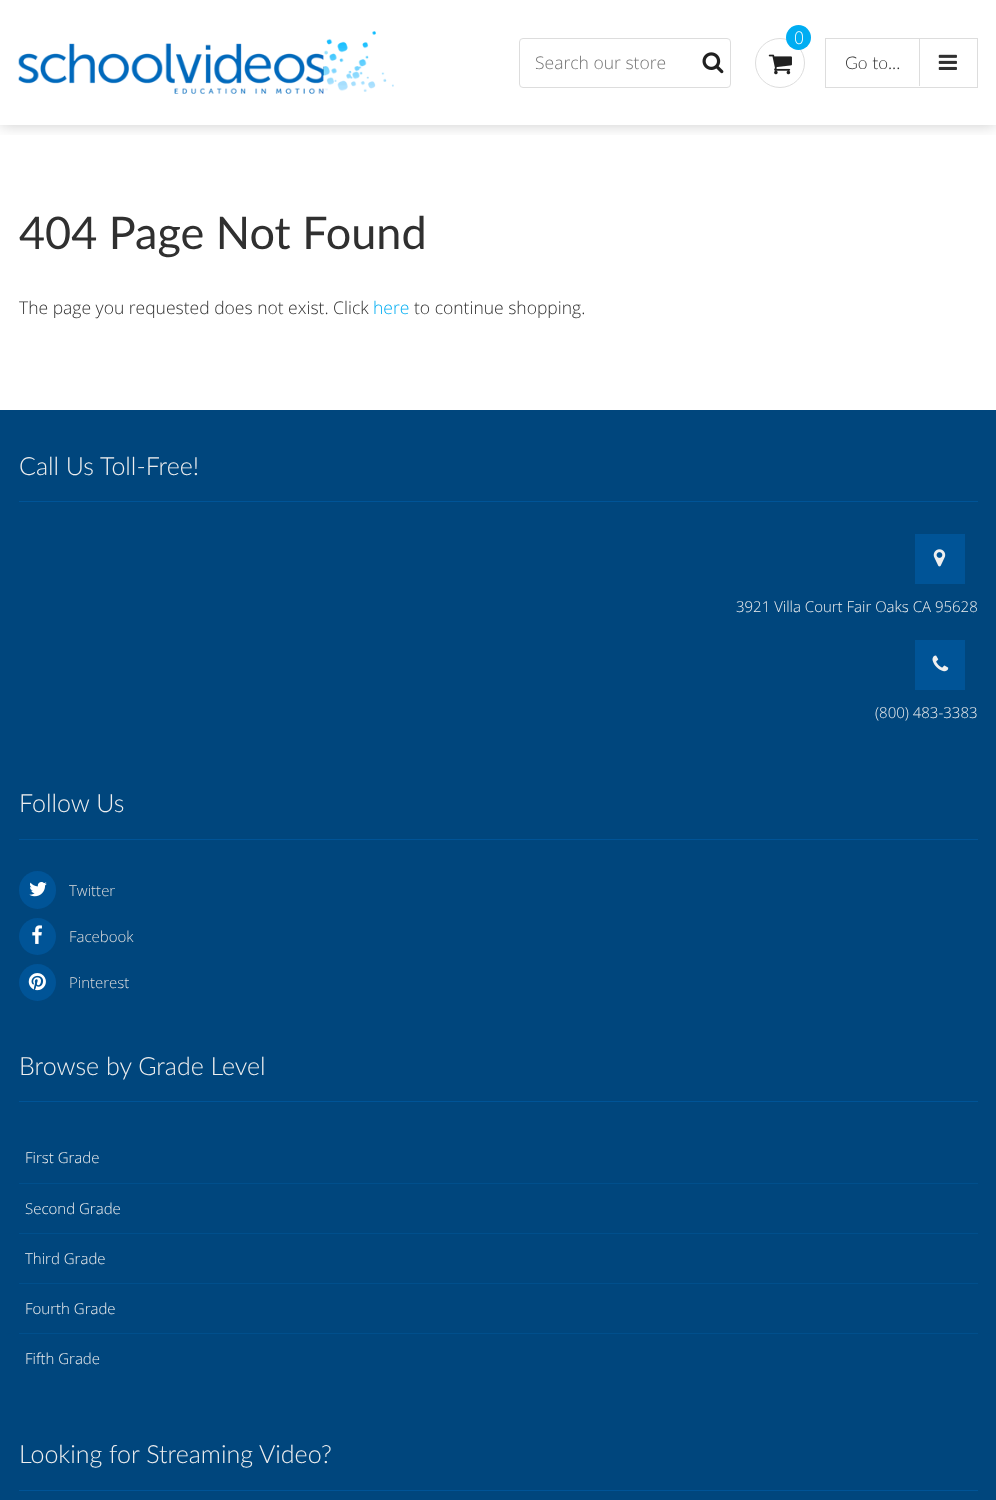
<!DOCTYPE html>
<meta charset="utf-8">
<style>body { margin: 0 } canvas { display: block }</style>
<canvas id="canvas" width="996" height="1500"></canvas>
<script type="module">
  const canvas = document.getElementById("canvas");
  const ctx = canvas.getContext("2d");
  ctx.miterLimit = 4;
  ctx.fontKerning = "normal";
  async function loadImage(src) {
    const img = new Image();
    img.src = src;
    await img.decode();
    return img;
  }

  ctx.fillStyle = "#ffffff";
  ctx.fillRect(0, 0, 996, 1500);
  ctx.save();
  ctx.beginPath();
  ctx.rect(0, 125, 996, 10);
  ctx.clip();
  ctx.fillStyle = "rgba(0, 0, 0, 0.2)";
  ctx.filter = "blur(7.5px)";
  ctx.beginPath();
  ctx.rect(0, 0, 996, 125);
  ctx.fill();
  ctx.filter = "none";
  ctx.restore();
  ctx.drawImage(await loadImage("img1.png"), 18, 31, 376, 63);
  ctx.beginPath();
  ctx.arc(780, 63, 24.5, 0, Math.PI * 2);
  ctx.strokeStyle = "#dddddd";
  ctx.stroke();
  ctx.fillStyle = "#00adf2";
  ctx.beginPath();
  ctx.arc(798.5, 37.5, 12.5, 0, Math.PI * 2);
  ctx.fill();
  ctx.font = "300 17.5px Open Sans";
  ctx.fillStyle = "#ffffff";
  ctx.fillText("0", 794, 44);
  ctx.drawImage(await loadImage("img2.png"), 768, 54, 24, 21);
  ctx.beginPath();
  ctx.roundRect(519.5, 38.5, 211, 49, 3.5);
  ctx.stroke();
  ctx.fillStyle = "#757575";
  ctx.fillText("Search our store", 535, 69);
  ctx.drawImage(await loadImage("img3.png"), 702, 52, 22, 22);
  ctx.strokeRect(825.5, 38.5, 152, 49);
  ctx.font = "300 17.5px Lato";
  ctx.fillStyle = "#303030";
  ctx.fillText("Go to...", 845, 69);
  ctx.fillStyle = "#dddddd";
  ctx.fillRect(919, 39, 1, 47);
  ctx.drawImage(await loadImage("img4.png"), 938, 54, 19, 16);
  ctx.font = "45px Lato";
  ctx.fillStyle = "#303030";
  ctx.fillText("404 Page Not Found", 19, 249);
  ctx.font = "300 17.5px Open Sans";
  ctx.fillText("The page you requested does not exist. Click", 19, 314);
  ctx.fillStyle = "#00adf2";
  ctx.fillText("here", 373, 314);
  ctx.fillStyle = "#303030";
  ctx.fillText("to continue shopping.", 414, 314);
  ctx.fillStyle = "#00467d";
  ctx.fillRect(0, 410, 996, 1090);
  ctx.fillStyle = "#005497";
  ctx.fillRect(19, 501, 959, 1);
  ctx.font = "300 25px Lato";
  ctx.fillStyle = "#efefef";
  ctx.fillText("Call Us Toll-Free!", 19, 475);
  ctx.fillStyle = "#005497";
  ctx.fillRect(915, 534, 50, 50);
  ctx.drawImage(await loadImage("img5.png"), 933, 549, 13, 18);
  ctx.font = "300 15px Open Sans";
  ctx.fillStyle = "#efefef";
  ctx.fillText("3921 Villa Court Fair Oaks CA 95628", 736, 612);
  ctx.fillStyle = "#005497";
  ctx.fillRect(915, 640, 50, 50);
  ctx.drawImage(await loadImage("img6.png"), 932, 655, 17, 17);
  ctx.fillStyle = "#efefef";
  ctx.fillText("(800) 483-3383", 875, 718);
  ctx.fillStyle = "#005497";
  ctx.fillRect(19, 839, 959, 1);
  ctx.font = "300 25px Lato";
  ctx.fillStyle = "#efefef";
  ctx.fillText("Follow Us", 19, 812);
  ctx.fillStyle = "#005497";
  ctx.beginPath();
  ctx.roundRect(19, 871, 37, 38, 18.5);
  ctx.fill();
  ctx.drawImage(await loadImage("img7.png"), 29, 882, 18, 15);
  ctx.font = "300 15px Open Sans";
  ctx.fillStyle = "#dddddd";
  ctx.fillText("Twitter", 69, 896);
  ctx.fillStyle = "#005497";
  ctx.beginPath();
  ctx.arc(37.5, 936.5, 18.5, 0, Math.PI * 2);
  ctx.fill();
  ctx.drawImage(await loadImage("img8.png"), 32, 925, 10, 19);
  ctx.fillStyle = "#dddddd";
  ctx.fillText("Facebook", 69, 942);
  ctx.fillStyle = "#005497";
  ctx.beginPath();
  ctx.arc(37.5, 982.5, 18.5, 0, Math.PI * 2);
  ctx.fill();
  ctx.drawImage(await loadImage("img9.png"), 28, 973, 18, 18);
  ctx.fillStyle = "#dddddd";
  ctx.fillText("Pinterest", 69, 988);
  ctx.fillStyle = "#005497";
  ctx.fillRect(19, 1101, 959, 1);
  ctx.font = "300 25px Lato";
  ctx.fillStyle = "#efefef";
  ctx.fillText("Browse by Grade Level", 19, 1075);
  ctx.font = "300 15px Open Sans";
  ctx.fillText("First Grade", 25, 1163);
  ctx.fillStyle = "#004f8c";
  ctx.fillRect(19, 1183, 959, 1);
  ctx.fillStyle = "#efefef";
  ctx.fillText("Second Grade", 25, 1214);
  ctx.fillStyle = "#004f8c";
  ctx.fillRect(19, 1233, 959, 1);
  ctx.fillStyle = "#efefef";
  ctx.fillText("Third Grade", 25, 1264);
  ctx.fillStyle = "#004f8c";
  ctx.fillRect(19, 1283, 959, 1);
  ctx.fillStyle = "#efefef";
  ctx.fillText("Fourth Grade", 25, 1314);
  ctx.fillStyle = "#004f8c";
  ctx.fillRect(19, 1333, 959, 1);
  ctx.fillStyle = "#efefef";
  ctx.fillText("Fifth Grade", 25, 1364);
  ctx.fillStyle = "#005497";
  ctx.fillRect(19, 1490, 959, 1);
  ctx.font = "300 25px Lato";
  ctx.fillStyle = "#efefef";
  ctx.fillText("Looking for Streaming Video?", 19, 1463);
</script>
